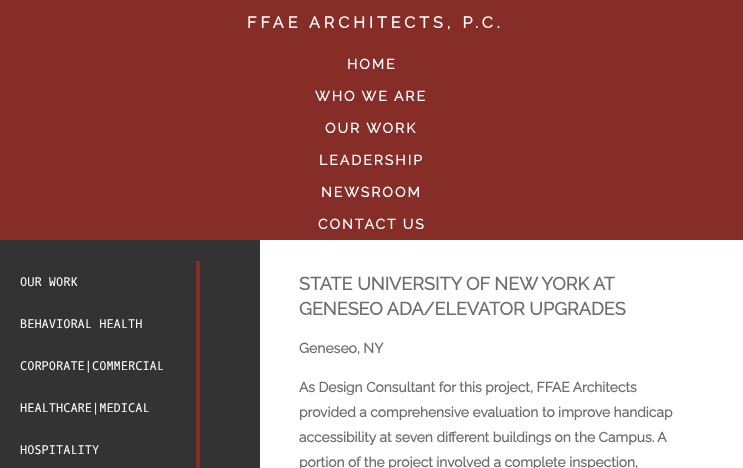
<!DOCTYPE html>
<meta charset="utf-8">
<style>body { margin: 0 } canvas { display: block }</style>
<canvas id="canvas" width="743" height="468"></canvas>
<script type="module">
  const canvas = document.getElementById("canvas");
  const ctx = canvas.getContext("2d");
  ctx.miterLimit = 4;
  ctx.fontKerning = "normal";

  ctx.fillStyle = "#333333";
  ctx.fillRect(0, 0, 743, 468);
  ctx.fillStyle = "#862d27";
  ctx.fillRect(0, 0, 743, 240);
  ctx.letterSpacing = "4px";
  ctx.font = "bold 16px Raleway";
  ctx.fillStyle = "#ffffff";
  ctx.fillText("FFAE ARCHITECTS, P.C.", 247, 28);
  ctx.letterSpacing = "2px";
  ctx.font = "bold 14px Raleway";
  ctx.fillText("HOME", 347, 69);
  ctx.fillText("WHO WE ARE", 315, 101);
  ctx.fillText("OUR WORK", 325, 133);
  ctx.fillText("LEADERSHIP", 319, 165);
  ctx.fillText("NEWSROOM", 321, 197);
  ctx.fillText("CONTACT US", 318, 229);
  ctx.fillStyle = "#862d27";
  ctx.fillRect(196, 261, 4, 207);
  ctx.letterSpacing = "0px";
  ctx.font = "12px Oxygen Mono";
  ctx.fillStyle = "#ffffff";
  ctx.fillText("OUR WORK", 20, 286);
  ctx.fillText("BEHAVIORAL HEALTH", 20, 328);
  ctx.fillText("CORPORATE|COMMERCIAL", 20, 370);
  ctx.fillText("HEALTHCARE|MEDICAL", 20, 412);
  ctx.fillText("HOSPITALITY", 20, 454);
  ctx.fillRect(260, 240, 483, 228);
  ctx.font = "bold 18px Raleway";
  ctx.fillStyle = "#6e6c6d";
  ctx.fillText("STATE UNIVERSITY OF NEW YORK AT", 299, 290);
  ctx.fillText("GENESEO ADA/ELEVATOR UPGRADES", 299, 315);
  ctx.font = "bold 14px Raleway";
  ctx.fillText("Geneseo, NY", 299, 353);
  ctx.font = "bold 13.8px Raleway";
  ctx.fillText("As Design Consultant for this project, FFAE Architects", 299, 392);
  ctx.fillText("provided a comprehensive evaluation to improve handicap", 299, 417);
  ctx.fillText("accessibility at seven different buildings on the Campus. A", 299, 442);
  ctx.fillText("portion of the project involved a complete inspection,", 299, 467);
</script>
